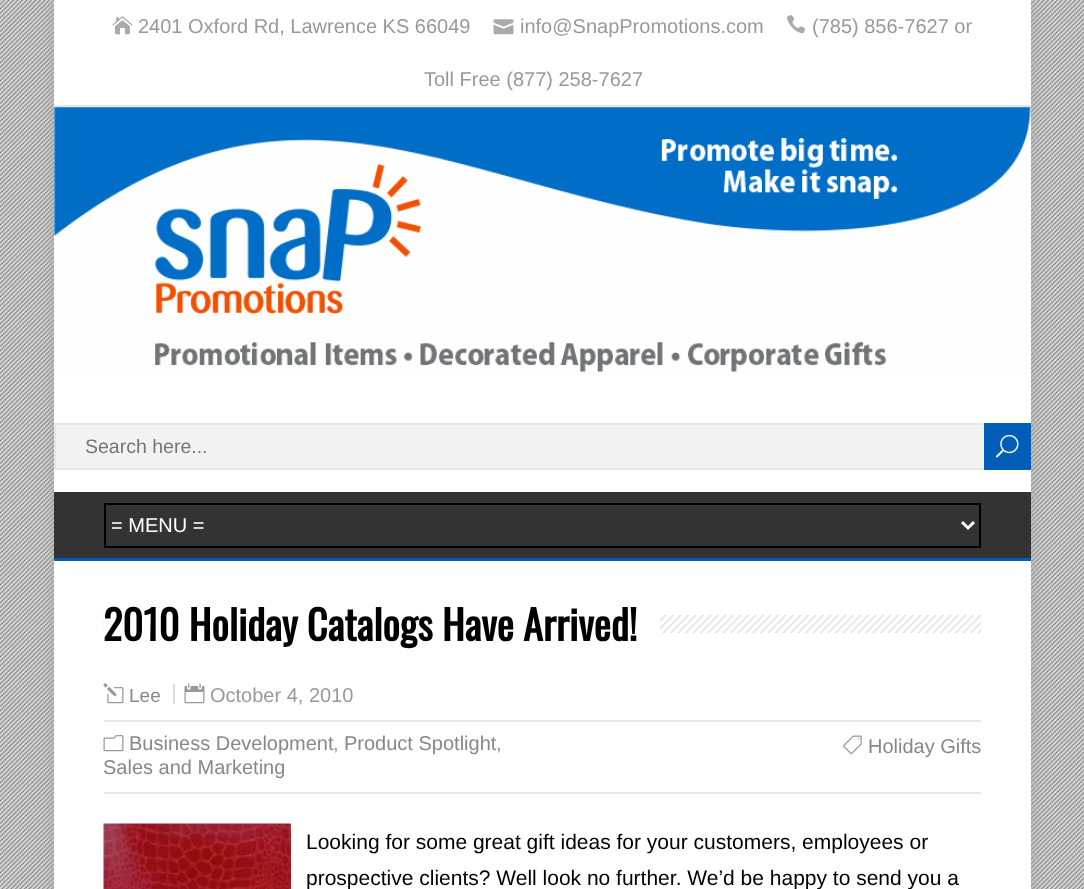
<!DOCTYPE html>
<meta charset="utf-8">
<style>body { margin: 0 } canvas { display: block }</style>
<canvas id="canvas" width="1084" height="889"></canvas>
<script type="module">
  const canvas = document.getElementById("canvas");
  const ctx = canvas.getContext("2d");
  ctx.miterLimit = 4;
  ctx.fontKerning = "normal";
  async function loadImage(src) {
    const img = new Image();
    img.src = src;
    await img.decode();
    return img;
  }

  ctx.fillStyle = "#dedede";
  ctx.fillRect(0, 0, 1084, 889);
  ctx.drawImage(await loadImage("img1.png"), 0, 0, 1084, 889);
  ctx.fillStyle = "#aaaaaa";
  ctx.filter = "blur(7.5px)";
  ctx.beginPath();
  ctx.rect(54, 0, 977, 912);
  ctx.fill();
  ctx.filter = "none";
  ctx.fillStyle = "#ffffff";
  ctx.fillRect(54, 0, 977, 889);
  ctx.fillStyle = "#e6e6e6";
  ctx.fillRect(54, 105, 977, 2);
  ctx.drawImage(await loadImage("img2.png"), 112, 16, 21, 19);
  ctx.font = "20px Liberation Sans";
  ctx.fillStyle = "#999999";
  ctx.fillText("2401 Oxford Rd, Lawrence KS 66049", 138, 33);
  ctx.drawImage(await loadImage("img3.png"), 493, 19, 21, 16);
  ctx.fillText("info@SnapPromotions.com", 520, 33);
  ctx.drawImage(await loadImage("img4.png"), 786, 15, 20, 19);
  ctx.fillText("(785) 856-7627 or", 812, 33);
  ctx.fillText("Toll Free (877) 258-7627", 424, 86);
  ctx.drawImage(await loadImage("img5.png"), 54, 107, 977, 265);
  ctx.fillStyle = "#f2f2f2";
  ctx.fillRect(56, 425, 928, 43);
  ctx.strokeStyle = "#e6e6e6";
  ctx.lineWidth = 2;
  ctx.strokeRect(55, 424, 967, 45);
  ctx.font = "19.5px Liberation Sans";
  ctx.fillStyle = "#757575";
  ctx.fillText("Search here...", 85, 453);
  ctx.fillStyle = "#005eb8";
  ctx.fillRect(984, 423, 47, 47);
  ctx.drawImage(await loadImage("img6.png"), 995, 434, 24, 24);
  ctx.fillStyle = "#333333";
  ctx.fillRect(54, 492, 977, 66);
  ctx.fillStyle = "#005eb8";
  ctx.fillRect(54, 558, 977, 3);
  ctx.strokeStyle = "#000000";
  ctx.strokeRect(105, 504, 875, 43);
  ctx.beginPath();
  ctx.moveTo(962, 522);
  ctx.lineTo(968, 528);
  ctx.lineTo(974, 522);
  ctx.strokeStyle = "#ffffff";
  ctx.lineWidth = 3;
  ctx.stroke();
  ctx.font = "20px Liberation Sans";
  ctx.fillStyle = "#ffffff";
  ctx.fillText("= MENU =", 111, 532);
  ctx.drawImage(await loadImage("img7.png"), 103, 615, 878, 18);
  ctx.fillRect(104, 615, 556, 18);
  ctx.font = "bold 40.5px Oswald";
  ctx.fillStyle = "#000000";
  ctx.fillText("2010 Holiday Catalogs Have Arrived!", 103, 641);
  ctx.drawImage(await loadImage("img8.png"), 103, 683, 21, 21);
  ctx.font = "19px Liberation Sans";
  ctx.fillStyle = "#888888";
  ctx.fillText("Lee", 129, 702);
  ctx.drawImage(await loadImage("img9.png"), 184, 683, 21, 21);
  ctx.font = "20px Liberation Sans";
  ctx.fillStyle = "#999999";
  ctx.fillText("October 4, 2010", 210, 702);
  ctx.fillStyle = "#dbdbdb";
  ctx.fillRect(173, 684, 2, 20);
  ctx.fillStyle = "#e8e8e8";
  ctx.fillRect(104, 720, 877, 2);
  ctx.fillRect(104, 792, 877, 2);
  ctx.drawImage(await loadImage("img10.png"), 103, 735, 21, 17);
  ctx.fillStyle = "#888888";
  ctx.fillText("Business Development", 129, 750);
  ctx.fillStyle = "#999999";
  ctx.fillText(",", 333, 750);
  ctx.fillStyle = "#888888";
  ctx.fillText("Product Spotlight", 344, 750);
  ctx.fillStyle = "#999999";
  ctx.fillText(",", 496, 750);
  ctx.fillStyle = "#888888";
  ctx.fillText("Sales and Marketing", 103, 774);
  ctx.drawImage(await loadImage("img11.png"), 843, 735, 19, 20);
  ctx.fillText("Holiday Gifts", 868, 753);
  ctx.drawImage(await loadImage("img12.png"), 103, 823, 188, 66);
  ctx.font = "21px Liberation Sans";
  ctx.fillStyle = "#000000";
  ctx.fillText("Looking for some great gift ideas for your customers, employees or", 306, 849);
  ctx.fillText("prospective clients? Well look no further. We’d be happy to send you a", 306, 885);
</script>
